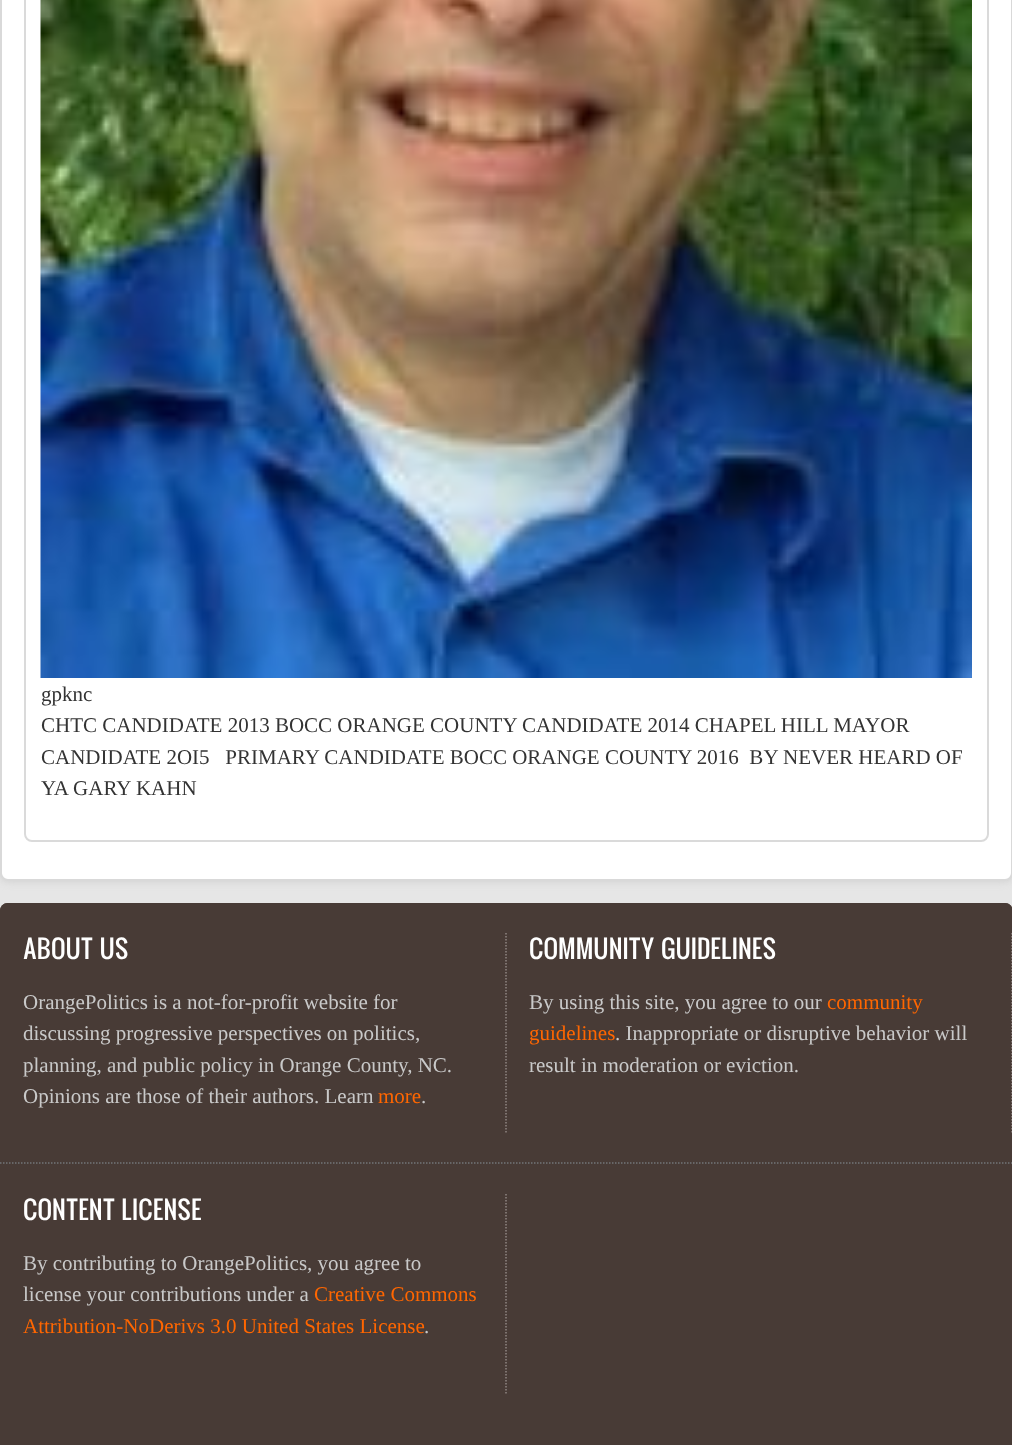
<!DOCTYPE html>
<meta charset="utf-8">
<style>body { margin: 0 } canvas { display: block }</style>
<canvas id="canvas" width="1012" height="1445"></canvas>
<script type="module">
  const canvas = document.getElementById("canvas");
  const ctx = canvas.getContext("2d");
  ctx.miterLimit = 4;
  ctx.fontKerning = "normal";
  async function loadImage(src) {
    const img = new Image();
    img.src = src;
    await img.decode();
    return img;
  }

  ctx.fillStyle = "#e6e6e6";
  ctx.fillRect(0, 0, 1012, 1445);
  ctx.fillStyle = "#cccccc";
  ctx.filter = "blur(4px)";
  ctx.beginPath();
  ctx.roundRect(0, -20, 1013, 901, 8);
  ctx.fill();
  ctx.filter = "none";
  ctx.fillStyle = "#ffffff";
  ctx.beginPath();
  ctx.roundRect(1, -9, 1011, 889, 7);
  ctx.fill();
  ctx.strokeStyle = "#d9d9d9";
  ctx.lineWidth = 2;
  ctx.stroke();
  ctx.beginPath();
  ctx.roundRect(25, -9, 963, 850, 7);
  ctx.strokeStyle = "#dadada";
  ctx.stroke();
  ctx.drawImage(await loadImage("img1.png"), 40, 0, 932, 678);
  ctx.font = "21px Liberation Serif";
  ctx.fillStyle = "#333333";
  ctx.fillText("gpknc", 41, 701);
  ctx.fillText("CHTC CANDIDATE 2013 BOCC ORANGE COUNTY CANDIDATE 2014 CHAPEL HILL MAYOR", 41, 732);
  ctx.fillText("CANDIDATE 2OI5   PRIMARY CANDIDATE BOCC ORANGE COUNTY 2016  BY NEVER HEARD OF", 41, 764);
  ctx.fillText("YA GARY KAHN", 41, 795);
  ctx.fillStyle = "#5a4a44";
  ctx.beginPath();
  ctx.moveTo(8, 903);
  ctx.lineTo(1005, 903);
  ctx.bezierCurveTo(1009.5, 903, 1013, 906.5, 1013, 911);
  ctx.lineTo(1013, 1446);
  ctx.lineTo(0, 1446);
  ctx.lineTo(0, 911);
  ctx.bezierCurveTo(0, 906.5, 3.5, 903, 8, 903);
  ctx.closePath();
  ctx.fill();
  ctx.drawImage(await loadImage("img2.png"), 0, 903, 1012, 542);
  ctx.beginPath();
  ctx.moveTo(0, 1163);
  ctx.lineTo(507, 1163);
  ctx.strokeStyle = "#717578";
  ctx.lineWidth = 1.5;
  ctx.setLineDash([1.5, 1.5]);
  ctx.stroke();
  ctx.beginPath();
  ctx.moveTo(506, 933);
  ctx.lineTo(506, 1132.5);
  ctx.strokeStyle = "#8f8683";
  ctx.stroke();
  ctx.font = "24.5px Oswald";
  ctx.fillStyle = "#ffffff";
  ctx.fillText("ABOUT US", 23, 959);
  ctx.font = "21px Liberation Serif";
  ctx.fillStyle = "#c9c9c9";
  ctx.fillText("OrangePolitics is a not-for-profit website for", 23, 1009);
  ctx.fillText("discussing progressive perspectives on politics,", 23, 1040);
  ctx.fillText("planning, and public policy in Orange County, NC.", 23, 1072);
  ctx.fillText("Opinions are those of their authors. Learn", 23, 1103);
  ctx.fillStyle = "#ff6600";
  ctx.fillText("more", 378, 1103);
  ctx.fillStyle = "#c9c9c9";
  ctx.fillText(".", 421, 1103);
  ctx.beginPath();
  ctx.moveTo(507, 1163);
  ctx.lineTo(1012.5, 1163);
  ctx.strokeStyle = "#717578";
  ctx.stroke();
  ctx.beginPath();
  ctx.moveTo(1012, 933);
  ctx.lineTo(1012, 1132.5);
  ctx.strokeStyle = "#8f8683";
  ctx.stroke();
  ctx.font = "24.5px Oswald";
  ctx.fillStyle = "#ffffff";
  ctx.fillText("COMMUNITY GUIDELINES", 529, 959);
  ctx.font = "21px Liberation Serif";
  ctx.fillStyle = "#c9c9c9";
  ctx.fillText("By using this site, you agree to our", 529, 1009);
  ctx.fillStyle = "#ff6600";
  ctx.fillText("community", 827, 1009);
  ctx.fillText("guidelines", 529, 1040);
  ctx.fillStyle = "#c9c9c9";
  ctx.fillText(". Inappropriate or disruptive behavior will", 615, 1040);
  ctx.fillText("result in moderation or eviction.", 529, 1072);
  ctx.beginPath();
  ctx.moveTo(506, 1194);
  ctx.lineTo(506, 1395);
  ctx.stroke();
  ctx.font = "24.5px Oswald";
  ctx.fillStyle = "#ffffff";
  ctx.fillText("CONTENT LICENSE", 23, 1220);
  ctx.font = "21px Liberation Serif";
  ctx.fillStyle = "#c9c9c9";
  ctx.fillText("By contributing to OrangePolitics, you agree to", 23, 1270);
  ctx.fillText("license your contributions under a", 23, 1301);
  ctx.fillStyle = "#ff6600";
  ctx.fillText("Creative Commons", 314, 1301);
  ctx.fillText("Attribution-NoDerivs 3.0 United States License", 23, 1333);
  ctx.fillStyle = "#c9c9c9";
  ctx.fillText(".", 424, 1333);
</script>
